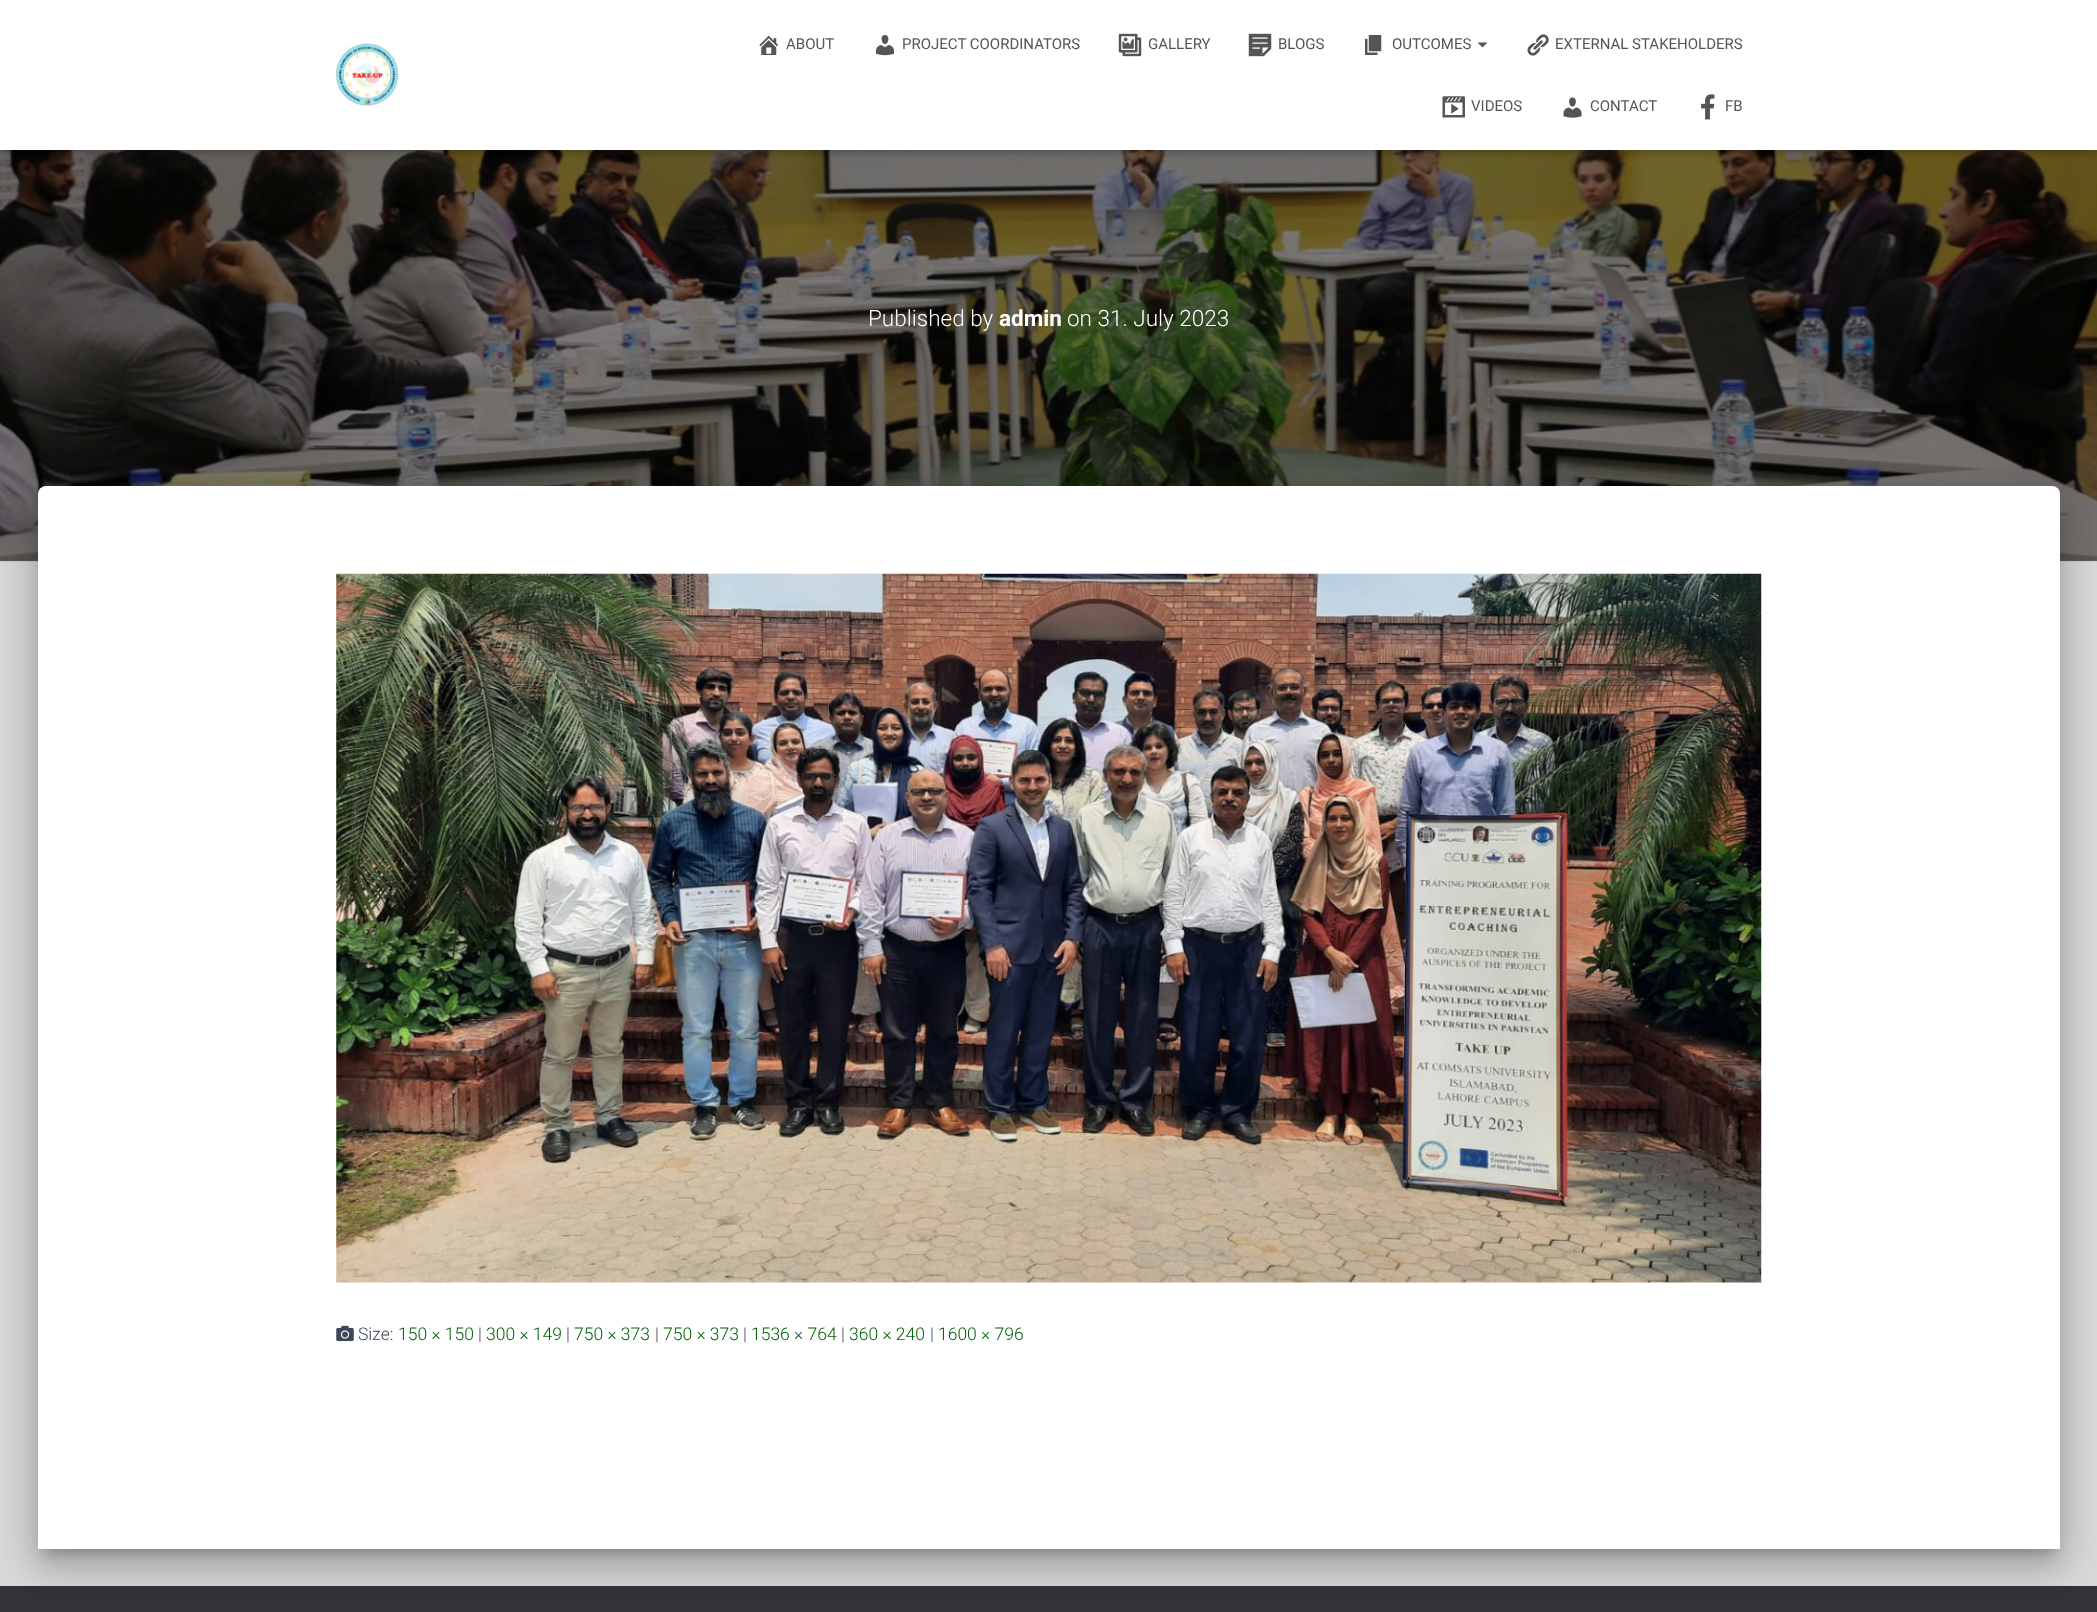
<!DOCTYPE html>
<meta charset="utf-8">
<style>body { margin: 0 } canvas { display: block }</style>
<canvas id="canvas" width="2097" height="1612"></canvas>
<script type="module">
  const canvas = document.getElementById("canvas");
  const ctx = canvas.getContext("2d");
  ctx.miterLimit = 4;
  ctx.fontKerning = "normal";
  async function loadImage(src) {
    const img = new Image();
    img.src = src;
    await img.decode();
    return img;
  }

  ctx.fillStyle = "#d8d8d8";
  ctx.fillRect(0, 0, 2097, 1612);
  ctx.drawImage(await loadImage("img11.png"), 0, 150, 2097, 412);
  ctx.fillStyle = "rgba(0, 0, 0, 0.1)";
  ctx.filter = "blur(3px)";
  ctx.beginPath();
  ctx.rect(3, 8, 2092, 145);
  ctx.fill();
  ctx.filter = "none";
  ctx.fillStyle = "rgba(0, 0, 0, 0.12)";
  ctx.filter = "blur(6px)";
  ctx.beginPath();
  ctx.rect(0, 1, 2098, 150);
  ctx.fill();
  ctx.filter = "none";
  ctx.fillStyle = "rgba(0, 0, 0, 0.42)";
  ctx.filter = "blur(6px)";
  ctx.beginPath();
  ctx.rect(8, 9, 2082, 135);
  ctx.fill();
  ctx.filter = "none";
  ctx.fillStyle = "#ffffff";
  ctx.fillRect(0, 0, 2097, 150);
  ctx.drawImage(await loadImage("img1.png"), 336, 43, 63, 64);
  ctx.drawImage(await loadImage("img2.png"), 759, 35, 19, 20);
  ctx.font = "15px Roboto";
  ctx.fillStyle = "#555555";
  ctx.fillText("ABOUT", 786, 49);
  ctx.drawImage(await loadImage("img3.png"), 875, 35, 20, 21);
  ctx.fillText("PROJECT COORDINATORS", 902, 49);
  ctx.drawImage(await loadImage("img4.png"), 1118, 33, 24, 24);
  ctx.fillText("GALLERY", 1148, 49);
  ctx.drawImage(await loadImage("img5.png"), 1248, 33, 24, 24);
  ctx.fillText("BLOGS", 1278, 49);
  ctx.drawImage(await loadImage("img6.png"), 1365, 35, 17, 20);
  ctx.fillText("OUTCOMES", 1392, 49);
  ctx.beginPath();
  ctx.moveTo(1477.5, 42.5);
  ctx.lineTo(1487.5, 42.5);
  ctx.lineTo(1482.5, 47.5);
  ctx.closePath();
  ctx.fill();
  ctx.drawImage(await loadImage("img7.png"), 1527, 34, 22, 22);
  ctx.fillText("EXTERNAL STAKEHOLDERS", 1555, 49);
  ctx.drawImage(await loadImage("img8.png"), 1442, 96, 23, 22);
  ctx.fillText("VIDEOS", 1471, 111);
  ctx.drawImage(await loadImage("img9.png"), 1563, 97, 19, 21);
  ctx.fillText("CONTACT", 1590, 111);
  ctx.drawImage(await loadImage("img10.png"), 1701, 94, 14, 26);
  ctx.fillText("FB", 1725, 111);
  ctx.font = "300 22.5px Roboto";
  ctx.fillStyle = "#ffffff";
  ctx.fillText("Published by", 868, 326);
  ctx.font = "bold 22.5px Roboto";
  ctx.fillText("admin", 999, 326);
  ctx.font = "300 22.5px Roboto";
  ctx.fillText("on 31. July 2023", 1067, 326);
  ctx.fillStyle = "rgba(0, 0, 0, 0.2)";
  ctx.filter = "blur(6px)";
  ctx.beginPath();
  ctx.roundRect(44, 503, 2010, 1050, 1);
  ctx.fill();
  ctx.filter = "none";
  ctx.fillStyle = "#323437";
  ctx.fillRect(0, 1586, 2097, 26);
  ctx.fillStyle = "rgba(0, 0, 0, 0.12)";
  ctx.filter = "blur(19px)";
  ctx.beginPath();
  ctx.roundRect(31, 488, 2035, 1075, 14);
  ctx.fill();
  ctx.filter = "none";
  ctx.fillStyle = "rgba(0, 0, 0, 0.14)";
  ctx.filter = "blur(15px)";
  ctx.beginPath();
  ctx.roundRect(35, 504, 2028, 1067, 10);
  ctx.fill();
  ctx.filter = "none";
  ctx.fillStyle = "#ffffff";
  ctx.beginPath();
  ctx.roundRect(38, 486, 2022, 1063, [8, 8, 0, 0]);
  ctx.fill();
  ctx.drawImage(await loadImage("img12.png"), 336, 573, 1426, 710);
  ctx.drawImage(await loadImage("img13.png"), 336, 1325, 18, 17);
  ctx.font = "300 17.5px Roboto";
  ctx.fillStyle = "#3c4858";
  ctx.fillText("Size:", 358, 1340);
  ctx.fillStyle = "#005e06";
  ctx.fillText("150 × 150", 398, 1340);
  ctx.fillStyle = "#3c4858";
  ctx.fillText("|", 478, 1340);
  ctx.fillStyle = "#005e06";
  ctx.fillText("300 × 149", 486, 1340);
  ctx.fillStyle = "#3c4858";
  ctx.fillText("|", 566, 1340);
  ctx.fillStyle = "#005e06";
  ctx.fillText("750 × 373", 574, 1340);
  ctx.fillStyle = "#3c4858";
  ctx.fillText("|", 655, 1340);
  ctx.fillStyle = "#005e06";
  ctx.fillText("750 × 373", 663, 1340);
  ctx.fillStyle = "#3c4858";
  ctx.fillText("|", 743, 1340);
  ctx.fillStyle = "#005e06";
  ctx.fillText("1536 × 764", 751, 1340);
  ctx.fillStyle = "#3c4858";
  ctx.fillText("|", 841, 1340);
  ctx.fillStyle = "#005e06";
  ctx.fillText("360 × 240", 849, 1340);
  ctx.fillStyle = "#3c4858";
  ctx.fillText("|", 930, 1340);
  ctx.fillStyle = "#005e06";
  ctx.fillText("1600 × 796", 938, 1340);
</script>
